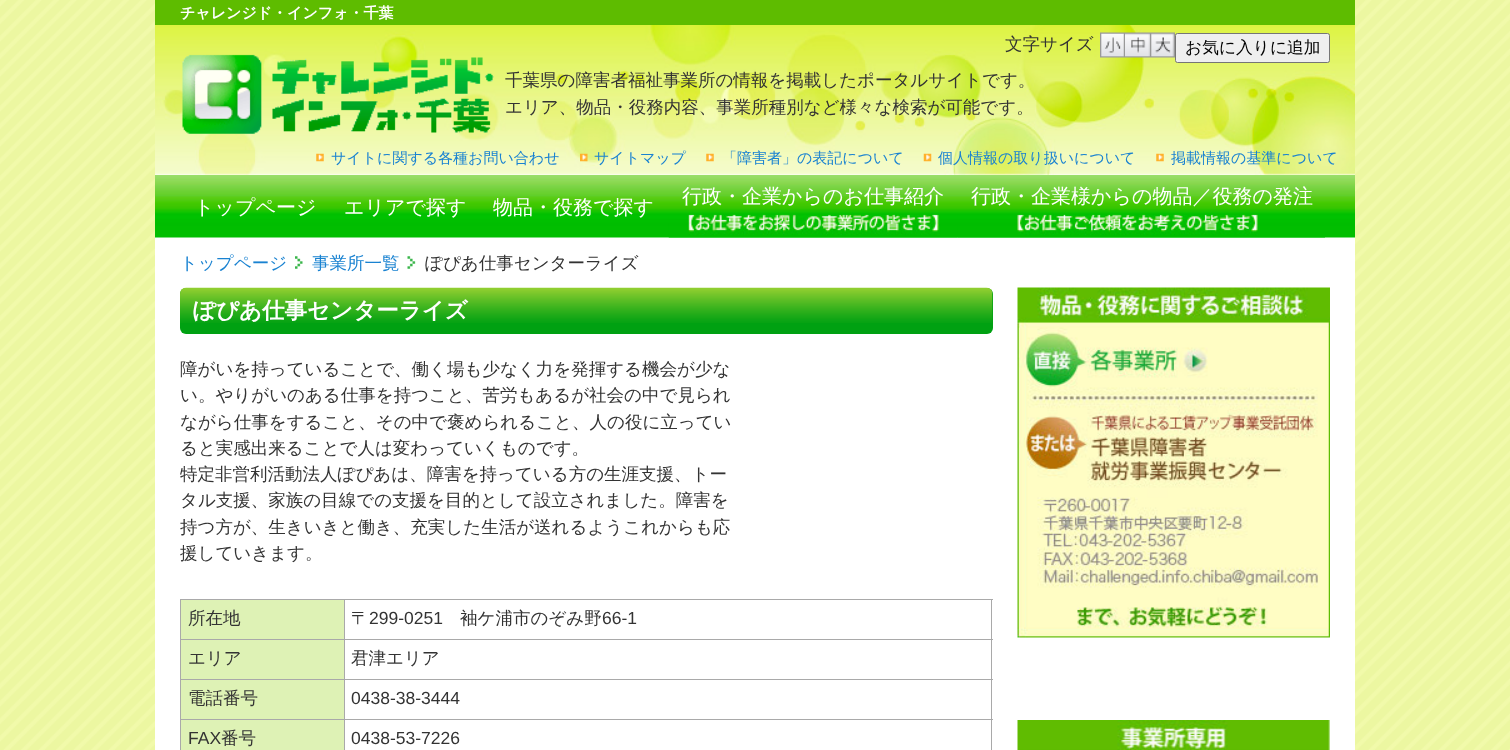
<!DOCTYPE html>
<meta charset="utf-8">
<style>body { margin: 0 } canvas { display: block }</style>
<canvas id="canvas" width="1510" height="750"></canvas>
<script type="module">
  const canvas = document.getElementById("canvas");
  const ctx = canvas.getContext("2d");
  ctx.miterLimit = 4;
  ctx.fontKerning = "normal";
  async function loadImage(src) {
    const img = new Image();
    img.src = src;
    await img.decode();
    return img;
  }

  ctx.fillStyle = "#ffffff";
  ctx.fillRect(0, 0, 1510, 750);
  ctx.drawImage(await loadImage("img1.png"), 0, 0, 1510, 750);
  ctx.fillRect(155, 237, 1200, 513);
  ctx.drawImage(await loadImage("img2.png"), 155, 25, 1200, 150);
  ctx.fillStyle = "#5ebc00";
  ctx.fillRect(155, 0, 1200, 25);
  ctx.font = "bold 15px WenQuanYi Zen Hei";
  ctx.fillStyle = "#ffffff";
  ctx.fillText("チャレンジド・インフォ・千葉", 180, 18);
  ctx.drawImage(await loadImage("img3.png"), 182, 54, 312, 80);
  ctx.font = "500 17.5px WenQuanYi Zen Hei";
  ctx.fillStyle = "#333333";
  ctx.fillText("千葉県の障害者福祉事業所の情報を掲載したポータルサイトです。", 505, 86);
  ctx.fillText("エリア、物品・役務内容、事業所種別など様々な検索が可能です。", 505, 113);
  ctx.fillText("文字サイズ", 1005, 50);
  ctx.drawImage(await loadImage("img4.png"), 1100, 32, 25, 26);
  ctx.drawImage(await loadImage("img5.png"), 1125, 32, 25, 26);
  ctx.drawImage(await loadImage("img6.png"), 1150, 32, 25, 26);
  ctx.fillStyle = "#efefef";
  ctx.beginPath();
  ctx.roundRect(1175.5, 33.5, 154, 29, 2);
  ctx.fill();
  ctx.strokeStyle = "#767676";
  ctx.stroke();
  ctx.font = "500 16.75px WenQuanYi Zen Hei";
  ctx.fillStyle = "#000000";
  ctx.fillText("お気に入りに追加", 1185, 53);
  ctx.drawImage(await loadImage("img7.png"), 316, 153, 8, 9);
  ctx.font = "500 15px WenQuanYi Zen Hei";
  ctx.fillStyle = "#1982d1";
  ctx.fillText("サイトに関する各種お問い合わせ", 331, 163);
  ctx.drawImage(await loadImage("img8.png"), 580, 153, 8, 9);
  ctx.fillText("サイトマップ", 594, 163);
  ctx.drawImage(await loadImage("img7.png"), 706, 153, 8, 9);
  ctx.fillText("「障害者」の表記について", 722, 163);
  ctx.drawImage(await loadImage("img9.png"), 923, 153, 9, 9);
  ctx.fillText("個人情報の取り扱いについて", 938, 163);
  ctx.drawImage(await loadImage("img7.png"), 1156, 153, 8, 9);
  ctx.fillText("掲載情報の基準について", 1171, 163);
  ctx.drawImage(await loadImage("img10.png"), 155, 175, 1200, 63);
  ctx.font = "500 20px WenQuanYi Zen Hei";
  ctx.fillStyle = "#ffffff";
  ctx.fillText("トップページ", 194, 214);
  ctx.fillText("エリアで探す", 344, 214);
  ctx.fillText("物品・役務で探す", 493, 214);
  ctx.drawImage(await loadImage("img11.png"), 668, 214, 290, 24);
  ctx.fillText("行政・企業からのお仕事紹介", 682, 203);
  ctx.drawImage(await loadImage("img12.png"), 957, 214, 368, 24);
  ctx.fillText("行政・企業様からの物品／役務の発注", 971, 203);
  ctx.font = "500 17.5px WenQuanYi Zen Hei";
  ctx.fillStyle = "#1982d1";
  ctx.fillText("トップページ", 180, 269);
  ctx.drawImage(await loadImage("img13.png"), 295, 256, 8, 13);
  ctx.fillText("事業所一覧", 312, 269);
  ctx.drawImage(await loadImage("img14.png"), 407, 256, 9, 13);
  ctx.fillStyle = "#333333";
  ctx.fillText("ぽぴあ仕事センターライズ", 425, 269);
  ctx.fillStyle = "#00a112";
  ctx.beginPath();
  ctx.roundRect(180, 288, 813, 46, 6);
  ctx.fill();
  ctx.drawImage(await loadImage("img15.png"), 180, 287, 813, 36);
  ctx.font = "bold 22.5px WenQuanYi Zen Hei";
  ctx.fillStyle = "#ffffff";
  ctx.fillText("ぽぴあ仕事センターライズ", 193, 318);
  ctx.font = "500 17.5px WenQuanYi Zen Hei";
  ctx.fillStyle = "#333333";
  ctx.fillText("障がいを持っていることで、働く場も少なく力を発揮する機会が少な", 180, 375);
  ctx.fillText("い。やりがいのある仕事を持つこと、苦労もあるが社会の中で見られ", 180, 401);
  ctx.fillText("ながら仕事をすること、その中で褒められること、人の役に立ってい", 180, 428);
  ctx.fillText("ると実感出来ることで人は変わっていくものです。", 180, 454);
  ctx.fillText("特定非営利活動法人ぽぴあは、障害を持っている方の生涯支援、トー", 180, 480);
  ctx.fillText("タル支援、家族の目線での支援を目的として設立されました。障害を", 180, 506);
  ctx.fillText("持つ方が、生きいきと働き、充実した生活が送れるようこれからも応", 180, 533);
  ctx.fillText("援していきます。", 180, 559);
  ctx.fillStyle = "#def2b5";
  ctx.fillRect(181, 600, 163, 39);
  ctx.fillStyle = "#a9a9a9";
  ctx.fillRect(344, 599, 649, 1);
  ctx.fillRect(344, 639, 649, 1);
  ctx.fillRect(344, 679, 649, 1);
  ctx.fillRect(344, 719, 649, 1);
  ctx.fillRect(344, 719, 1, 31);
  ctx.fillRect(180, 719, 165, 1);
  ctx.fillRect(344, 679, 1, 41);
  ctx.fillRect(180, 679, 165, 1);
  ctx.fillRect(344, 639, 1, 41);
  ctx.fillRect(180, 639, 165, 1);
  ctx.fillRect(344, 599, 1, 41);
  ctx.fillRect(180, 599, 165, 1);
  ctx.fillRect(180, 719, 1, 31);
  ctx.fillRect(180, 679, 1, 41);
  ctx.fillRect(180, 639, 1, 41);
  ctx.fillRect(180, 599, 1, 41);
  ctx.fillStyle = "#333333";
  ctx.fillText("所在地", 188, 624);
  ctx.fillStyle = "#a9a9a9";
  ctx.fillRect(991, 719, 1, 31);
  ctx.fillRect(991, 679, 1, 41);
  ctx.fillRect(991, 639, 1, 41);
  ctx.fillRect(991, 599, 1, 41);
  ctx.fillStyle = "#333333";
  ctx.fillText("〒", 351, 624);
  ctx.font = "17.5px Liberation Sans";
  ctx.fillText("299-0251", 369, 624);
  ctx.font = "500 17.5px WenQuanYi Zen Hei";
  ctx.fillText("袖ケ浦市のぞみ野", 460, 624);
  ctx.font = "17.5px Liberation Sans";
  ctx.fillText("66-1", 602, 624);
  ctx.fillStyle = "#def2b5";
  ctx.fillRect(181, 640, 163, 39);
  ctx.font = "500 17.5px WenQuanYi Zen Hei";
  ctx.fillStyle = "#333333";
  ctx.fillText("エリア", 188, 664);
  ctx.fillText("君津エリア", 351, 664);
  ctx.fillStyle = "#def2b5";
  ctx.fillRect(181, 680, 163, 39);
  ctx.fillStyle = "#333333";
  ctx.fillText("電話番号", 188, 704);
  ctx.font = "17.5px Liberation Sans";
  ctx.fillText("0438-38-3444", 351, 704);
  ctx.fillStyle = "#def2b5";
  ctx.fillRect(181, 720, 163, 30);
  ctx.fillStyle = "#333333";
  ctx.fillText("FAX", 188, 744);
  ctx.font = "500 17.5px WenQuanYi Zen Hei";
  ctx.fillText("番号", 221, 744);
  ctx.font = "17.5px Liberation Sans";
  ctx.fillText("0438-53-7226", 351, 744);
  ctx.drawImage(await loadImage("img16.png"), 1017, 287, 313, 351);
  ctx.drawImage(await loadImage("img17.png"), 1017, 720, 313, 30);
</script>
